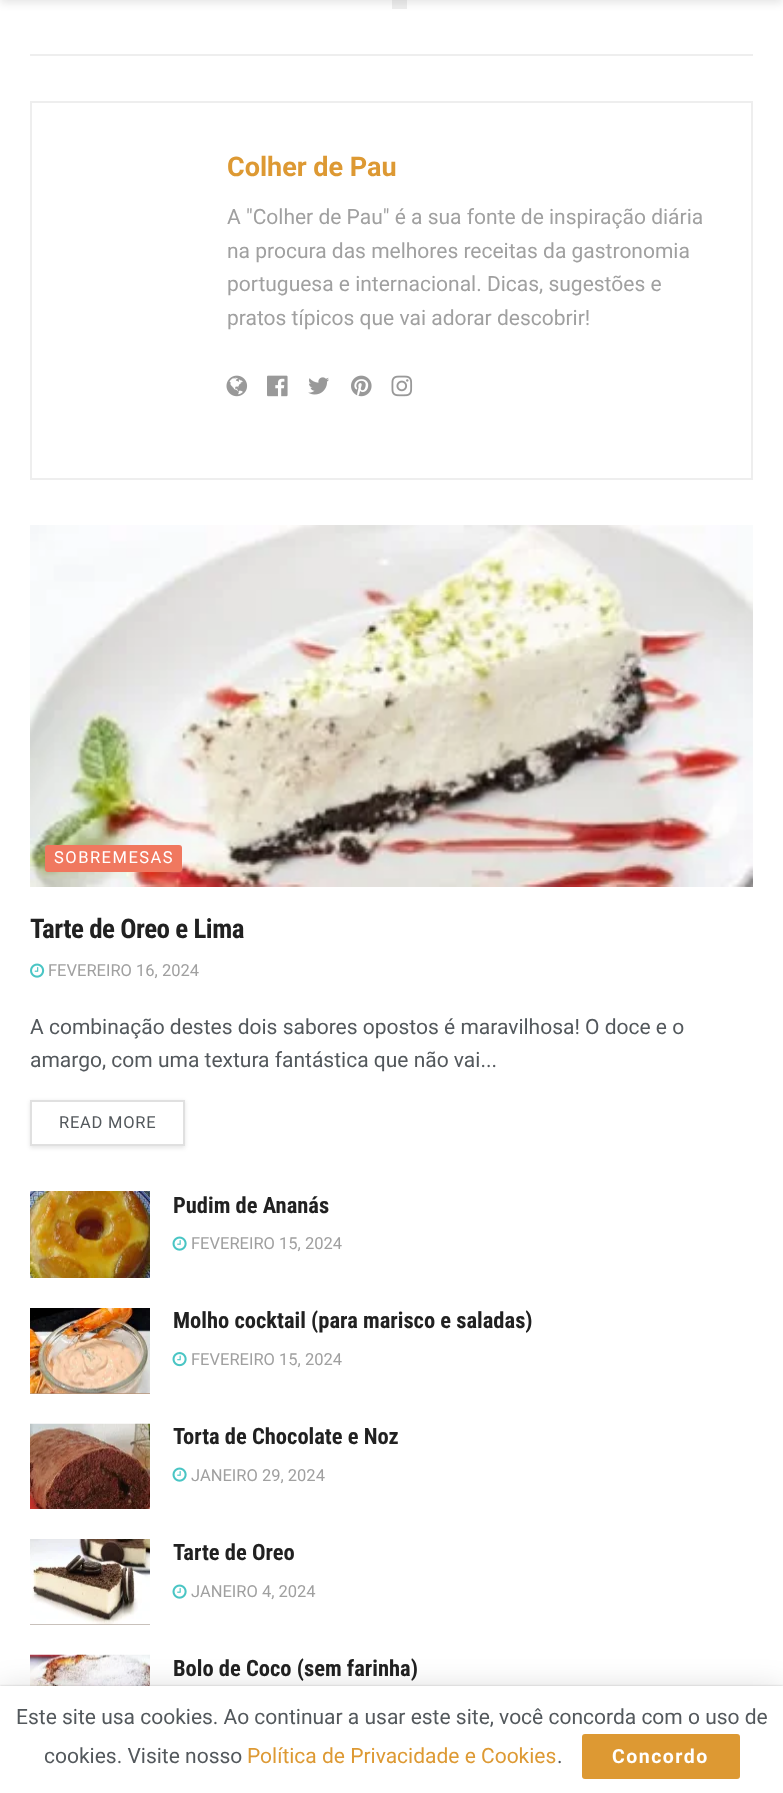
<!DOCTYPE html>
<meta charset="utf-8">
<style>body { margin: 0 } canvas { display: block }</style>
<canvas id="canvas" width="783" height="1793"></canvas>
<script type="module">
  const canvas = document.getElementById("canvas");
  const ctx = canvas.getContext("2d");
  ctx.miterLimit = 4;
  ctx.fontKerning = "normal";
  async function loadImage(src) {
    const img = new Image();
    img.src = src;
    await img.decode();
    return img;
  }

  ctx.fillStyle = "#ffffff";
  ctx.fillRect(0, 0, 783, 1793);
  ctx.fillStyle = "#eeeeee";
  ctx.fillRect(392, 0, 15, 9);
  ctx.fillStyle = "rgba(0, 0, 0, 0.1)";
  ctx.filter = "blur(4.5px)";
  ctx.beginPath();
  ctx.rect(0, -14, 783, 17);
  ctx.fill();
  ctx.filter = "none";
  ctx.fillStyle = "#eeeeee";
  ctx.fillRect(30, 54, 723, 2);
  ctx.strokeStyle = "#eeeeee";
  ctx.lineWidth = 2;
  ctx.strokeRect(31, 102, 721, 377);
  ctx.font = "bold 27px Roboto";
  ctx.fillStyle = "#dd9933";
  ctx.fillText("Colher de Pau", 227, 176);
  ctx.font = "21px Roboto";
  ctx.fillStyle = "#a0a0a0";
  ctx.fillText("A \"Colher de Pau\" é a sua fonte de inspiração diária", 227, 224);
  ctx.fillText("na procura das melhores receitas da gastronomia", 227, 258);
  ctx.fillText("portuguesa e internacional. Dicas, sugestões e", 227, 291);
  ctx.fillText("pratos típicos que vai adorar descobrir!", 227, 325);
  ctx.drawImage(await loadImage("img1.png"), 226, 375, 22, 22);
  ctx.drawImage(await loadImage("img2.png"), 267, 375, 21, 22);
  ctx.drawImage(await loadImage("img3.png"), 308, 377, 21, 18);
  ctx.drawImage(await loadImage("img4.png"), 351, 375, 21, 22);
  ctx.drawImage(await loadImage("img5.png"), 391, 375, 22, 22);
  ctx.drawImage(await loadImage("img6.png"), 30, 525, 723, 362);
  ctx.fillStyle = "#f0785f";
  ctx.beginPath();
  ctx.roundRect(45, 845, 137, 27, 3);
  ctx.fill();
  ctx.letterSpacing = "1.5px";
  ctx.font = "16.5px Roboto";
  ctx.fillStyle = "#ffffff";
  ctx.fillText("SOBREMESAS", 54, 863);
  ctx.letterSpacing = "-0.5px";
  ctx.font = "bold 27px Roboto Condensed";
  ctx.fillStyle = "#212121";
  ctx.fillText("Tarte de Oreo e Lima", 30, 938);
  ctx.drawImage(await loadImage("img7.png"), 30, 963, 15, 15);
  ctx.letterSpacing = "0px";
  ctx.font = "16.5px Roboto";
  ctx.fillStyle = "#a0a0a0";
  ctx.fillText("FEVEREIRO 16, 2024", 48, 976);
  ctx.font = "21px Roboto";
  ctx.fillStyle = "#53585c";
  ctx.fillText("A combinação destes dois sabores opostos é maravilhosa! O doce e o", 30, 1034);
  ctx.fillText("amargo, com uma textura fantástica que não vai...", 30, 1067);
  ctx.save();
  ctx.beginPath();
  ctx.moveTo(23, 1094);
  ctx.lineTo(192, 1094);
  ctx.lineTo(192, 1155);
  ctx.lineTo(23, 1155);
  ctx.closePath();
  ctx.moveTo(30, 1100);
  ctx.lineTo(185, 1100);
  ctx.lineTo(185, 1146);
  ctx.lineTo(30, 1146);
  ctx.closePath();
  ctx.clip("evenodd");
  ctx.fillStyle = "rgba(0, 0, 0, 0.1)";
  ctx.filter = "blur(2px)";
  ctx.beginPath();
  ctx.rect(30, 1101, 155, 47);
  ctx.fill();
  ctx.filter = "none";
  ctx.restore();
  ctx.strokeStyle = "#e0e0e0";
  ctx.strokeRect(31, 1101, 153, 44);
  ctx.letterSpacing = "0.75px";
  ctx.font = "16.5px Roboto";
  ctx.fillText("READ MORE", 59, 1128);
  ctx.drawImage(await loadImage("img8.png"), 30, 1191, 120, 87);
  ctx.letterSpacing = "0px";
  ctx.font = "bold 22.5px Roboto Condensed";
  ctx.fillStyle = "#212121";
  ctx.fillText("Pudim de Ananás", 173, 1213);
  ctx.drawImage(await loadImage("img9.png"), 172, 1236, 15, 15);
  ctx.font = "16.5px Roboto";
  ctx.fillStyle = "#a0a0a0";
  ctx.fillText("FEVEREIRO 15, 2024", 191, 1249);
  ctx.fillStyle = "#b79578";
  ctx.fillRect(30, 1393, 120, 1);
  ctx.drawImage(await loadImage("img10.png"), 30, 1308, 120, 86);
  ctx.font = "bold 22.5px Roboto Condensed";
  ctx.fillStyle = "#212121";
  ctx.fillText("Molho cocktail (para marisco e saladas)", 173, 1328);
  ctx.drawImage(await loadImage("img11.png"), 172, 1352, 15, 15);
  ctx.font = "16.5px Roboto";
  ctx.fillStyle = "#a0a0a0";
  ctx.fillText("FEVEREIRO 15, 2024", 191, 1365);
  ctx.drawImage(await loadImage("img12.png"), 30, 1423, 120, 86);
  ctx.font = "bold 22.5px Roboto Condensed";
  ctx.fillStyle = "#212121";
  ctx.fillText("Torta de Chocolate e Noz", 173, 1444);
  ctx.drawImage(await loadImage("img9.png"), 172, 1467, 15, 15);
  ctx.font = "16.5px Roboto";
  ctx.fillStyle = "#a0a0a0";
  ctx.fillText("JANEIRO 29, 2024", 191, 1481);
  ctx.fillStyle = "#b6ada4";
  ctx.fillRect(30, 1624, 120, 1);
  ctx.drawImage(await loadImage("img13.png"), 30, 1539, 120, 86);
  ctx.font = "bold 22.5px Roboto Condensed";
  ctx.fillStyle = "#212121";
  ctx.fillText("Tarte de Oreo", 173, 1560);
  ctx.drawImage(await loadImage("img9.png"), 172, 1584, 15, 15);
  ctx.font = "16.5px Roboto";
  ctx.fillStyle = "#a0a0a0";
  ctx.fillText("JANEIRO 4, 2024", 191, 1597);
  ctx.drawImage(await loadImage("img14.png"), 30, 1654, 120, 32);
  ctx.font = "bold 22.5px Roboto Condensed";
  ctx.fillStyle = "#212121";
  ctx.fillText("Bolo de Coco (sem farinha)", 173, 1676);
  ctx.fillStyle = "rgba(0, 0, 0, 0.15)";
  ctx.filter = "blur(15px)";
  ctx.beginPath();
  ctx.rect(0, 1689, 783, 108);
  ctx.fill();
  ctx.filter = "none";
  ctx.fillStyle = "rgba(0, 0, 0, 0.2)";
  ctx.filter = "blur(1px)";
  ctx.beginPath();
  ctx.rect(0, 1686, 783, 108);
  ctx.fill();
  ctx.filter = "none";
  ctx.fillStyle = "#ffffff";
  ctx.fillRect(0, 1686, 783, 107);
  ctx.font = "21px Roboto";
  ctx.fillStyle = "#53585c";
  ctx.fillText("Este site usa cookies. Ao continuar a usar este site, você concorda com o uso de", 16, 1724);
  ctx.fillText("cookies. Visite nosso", 44, 1763);
  ctx.fillStyle = "#dd9933";
  ctx.fillText("Política de Privacidade e Cookies", 247, 1763);
  ctx.fillStyle = "#53585c";
  ctx.fillText(".", 557, 1763);
  ctx.fillStyle = "#dd9933";
  ctx.beginPath();
  ctx.roundRect(582, 1734, 158, 45, 3);
  ctx.fill();
  ctx.letterSpacing = "1.5px";
  ctx.font = "bold 19.5px Roboto";
  ctx.fillStyle = "#ffffff";
  ctx.fillText("Concordo", 612, 1763);
</script>
